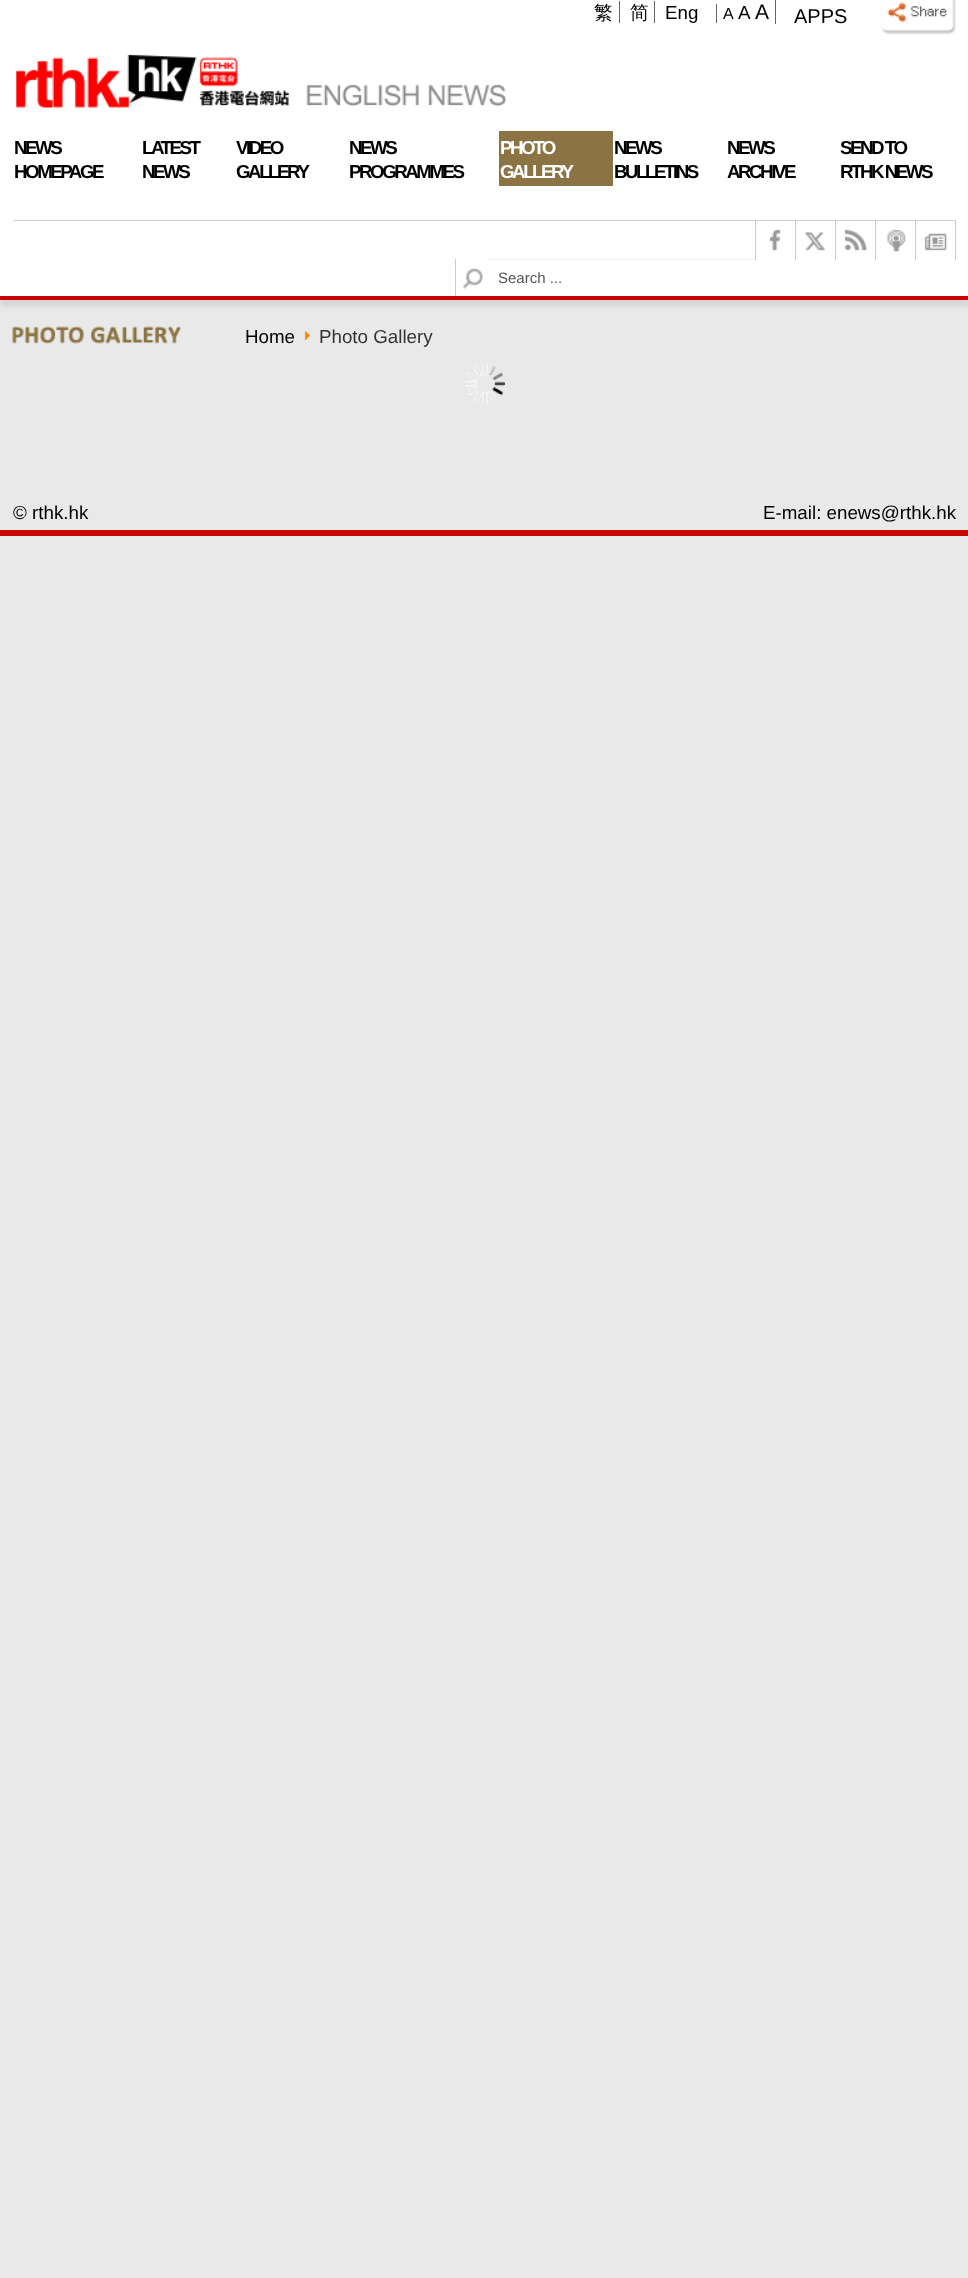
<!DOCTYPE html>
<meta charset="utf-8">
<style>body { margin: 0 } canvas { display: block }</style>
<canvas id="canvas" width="968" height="2278"></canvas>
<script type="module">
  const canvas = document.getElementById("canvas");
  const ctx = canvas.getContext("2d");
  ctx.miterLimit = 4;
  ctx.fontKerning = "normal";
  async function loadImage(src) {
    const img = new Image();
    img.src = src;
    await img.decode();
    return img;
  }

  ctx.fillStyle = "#e9e9e9";
  ctx.fillRect(0, 0, 968, 2278);
  ctx.fillStyle = "#ffffff";
  ctx.fillRect(0, 0, 968, 41);
  ctx.font = "500 18.75px WenQuanYi Zen Hei";
  ctx.fillStyle = "#000000";
  ctx.fillText("繁", 594, 19);
  ctx.fillStyle = "#666666";
  ctx.fillRect(619, 1, 1, 22);
  ctx.fillStyle = "#000000";
  ctx.fillText("简", 630, 19);
  ctx.fillStyle = "#666666";
  ctx.fillRect(654, 1, 1, 22);
  ctx.font = "18.75px Liberation Sans";
  ctx.fillStyle = "#000000";
  ctx.fillText("Eng", 665, 19);
  ctx.font = "16px Liberation Sans";
  ctx.fillText("A", 723, 19);
  ctx.fillStyle = "#666666";
  ctx.fillRect(716, 4, 1, 19);
  ctx.font = "18.75px Liberation Sans";
  ctx.fillStyle = "#000000";
  ctx.fillText("A", 738, 19);
  ctx.font = "21px Liberation Sans";
  ctx.fillText("A", 755, 19);
  ctx.fillStyle = "#666666";
  ctx.fillRect(775, 0, 1, 24);
  ctx.font = "20px Liberation Sans";
  ctx.fillStyle = "#000000";
  ctx.fillText("APPS", 794, 23);
  ctx.drawImage(await loadImage("img1.png"), 881, 0, 75, 35);
  ctx.fillStyle = "#d5d5d5";
  ctx.filter = "blur(2.5px)";
  ctx.beginPath();
  ctx.rect(0, 48, 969, 258);
  ctx.fill();
  ctx.filter = "none";
  ctx.fillStyle = "#ffffff";
  ctx.fillRect(0, 41, 968, 255);
  ctx.fillStyle = "#ca0202";
  ctx.fillRect(0, 296, 968, 4);
  ctx.drawImage(await loadImage("img2.png"), 16, 54, 491, 54);
  ctx.letterSpacing = "-2.5px";
  ctx.font = "bold 18.75px Liberation Sans";
  ctx.fillStyle = "#000000";
  ctx.fillText("NEWS", 14, 154);
  ctx.fillText("HOMEPAGE", 14, 178);
  ctx.fillText("LATEST", 142, 154);
  ctx.fillText("NEWS", 142, 178);
  ctx.fillText("VIDEO", 236, 154);
  ctx.fillText("GALLERY", 236, 178);
  ctx.fillText("NEWS", 349, 154);
  ctx.fillText("PROGRAMMES", 349, 178);
  ctx.fillStyle = "#8b7343";
  ctx.fillRect(499, 131, 114, 55);
  ctx.fillStyle = "#ffffff";
  ctx.fillText("PHOTO", 500, 154);
  ctx.fillText("GALLERY", 500, 178);
  ctx.fillStyle = "#000000";
  ctx.fillText("NEWS", 614, 154);
  ctx.fillText("BULLETINS", 614, 178);
  ctx.fillText("NEWS", 727, 154);
  ctx.fillText("ARCHIVE", 727, 178);
  ctx.fillText("SEND TO", 840, 154);
  ctx.fillText("RTHK NEWS", 840, 178);
  ctx.fillStyle = "#cccccc";
  ctx.fillRect(13, 220, 943, 1);
  ctx.fillRect(755, 221, 1, 39);
  ctx.drawImage(await loadImage("img3.png"), 769, 229, 12, 22);
  ctx.fillRect(795, 221, 1, 39);
  ctx.drawImage(await loadImage("img4.png"), 805, 232, 21, 19);
  ctx.fillRect(835, 221, 1, 39);
  ctx.drawImage(await loadImage("img5.png"), 844, 229, 23, 22);
  ctx.fillRect(875, 221, 1, 39);
  ctx.drawImage(await loadImage("img6.png"), 887, 229, 19, 23);
  ctx.fillRect(915, 221, 1, 39);
  ctx.drawImage(await loadImage("img7.png"), 924, 233, 23, 18);
  ctx.fillRect(955, 221, 1, 39);
  ctx.fillRect(455, 259, 1, 37);
  ctx.drawImage(await loadImage("img8.png"), 462, 268, 21, 21);
  ctx.fillStyle = "rgba(255, 255, 255, 0.2)";
  ctx.beginPath();
  ctx.moveTo(468, 269);
  ctx.bezierCurveTo(472.5, 269, 481, 267, 482, 273);
  ctx.lineTo(482, 280);
  ctx.bezierCurveTo(482, 282.5, 482.5, 286.5, 481.5, 288.5);
  ctx.bezierCurveTo(482.5, 287.5, 483, 286.5, 483, 285);
  ctx.lineTo(483, 273);
  ctx.bezierCurveTo(483, 270, 481, 268, 478, 268);
  ctx.lineTo(468, 268);
  ctx.bezierCurveTo(466, 268, 464.5, 269, 463.5, 270.5);
  ctx.bezierCurveTo(464.5, 269.5, 466, 269, 468, 269);
  ctx.closePath();
  ctx.fill();
  ctx.fillStyle = "#ececec";
  ctx.fillRect(488, 259, 267, 1);
  ctx.letterSpacing = "0px";
  ctx.font = "15px Liberation Sans";
  ctx.fillStyle = "#555555";
  ctx.fillText("Search ...", 498, 283);
  ctx.drawImage(await loadImage("img9.png"), 12, 326, 170, 18);
  ctx.drawImage(await loadImage("img10.png"), 465, 364, 40, 40);
  ctx.font = "18.75px Liberation Sans";
  ctx.fillStyle = "#000000";
  ctx.fillText("Home", 245, 343);
  ctx.drawImage(await loadImage("img11.png"), 304, 331, 7, 9);
  ctx.fillStyle = "#333333";
  ctx.fillText("Photo Gallery", 319, 343);
  ctx.fillStyle = "#ca0202";
  ctx.fillRect(0, 530, 968, 6);
  ctx.fillStyle = "#000000";
  ctx.fillText("© rthk.hk", 13, 519);
  ctx.fillText("E-mail: enews@rthk.hk", 763, 519);
</script>
